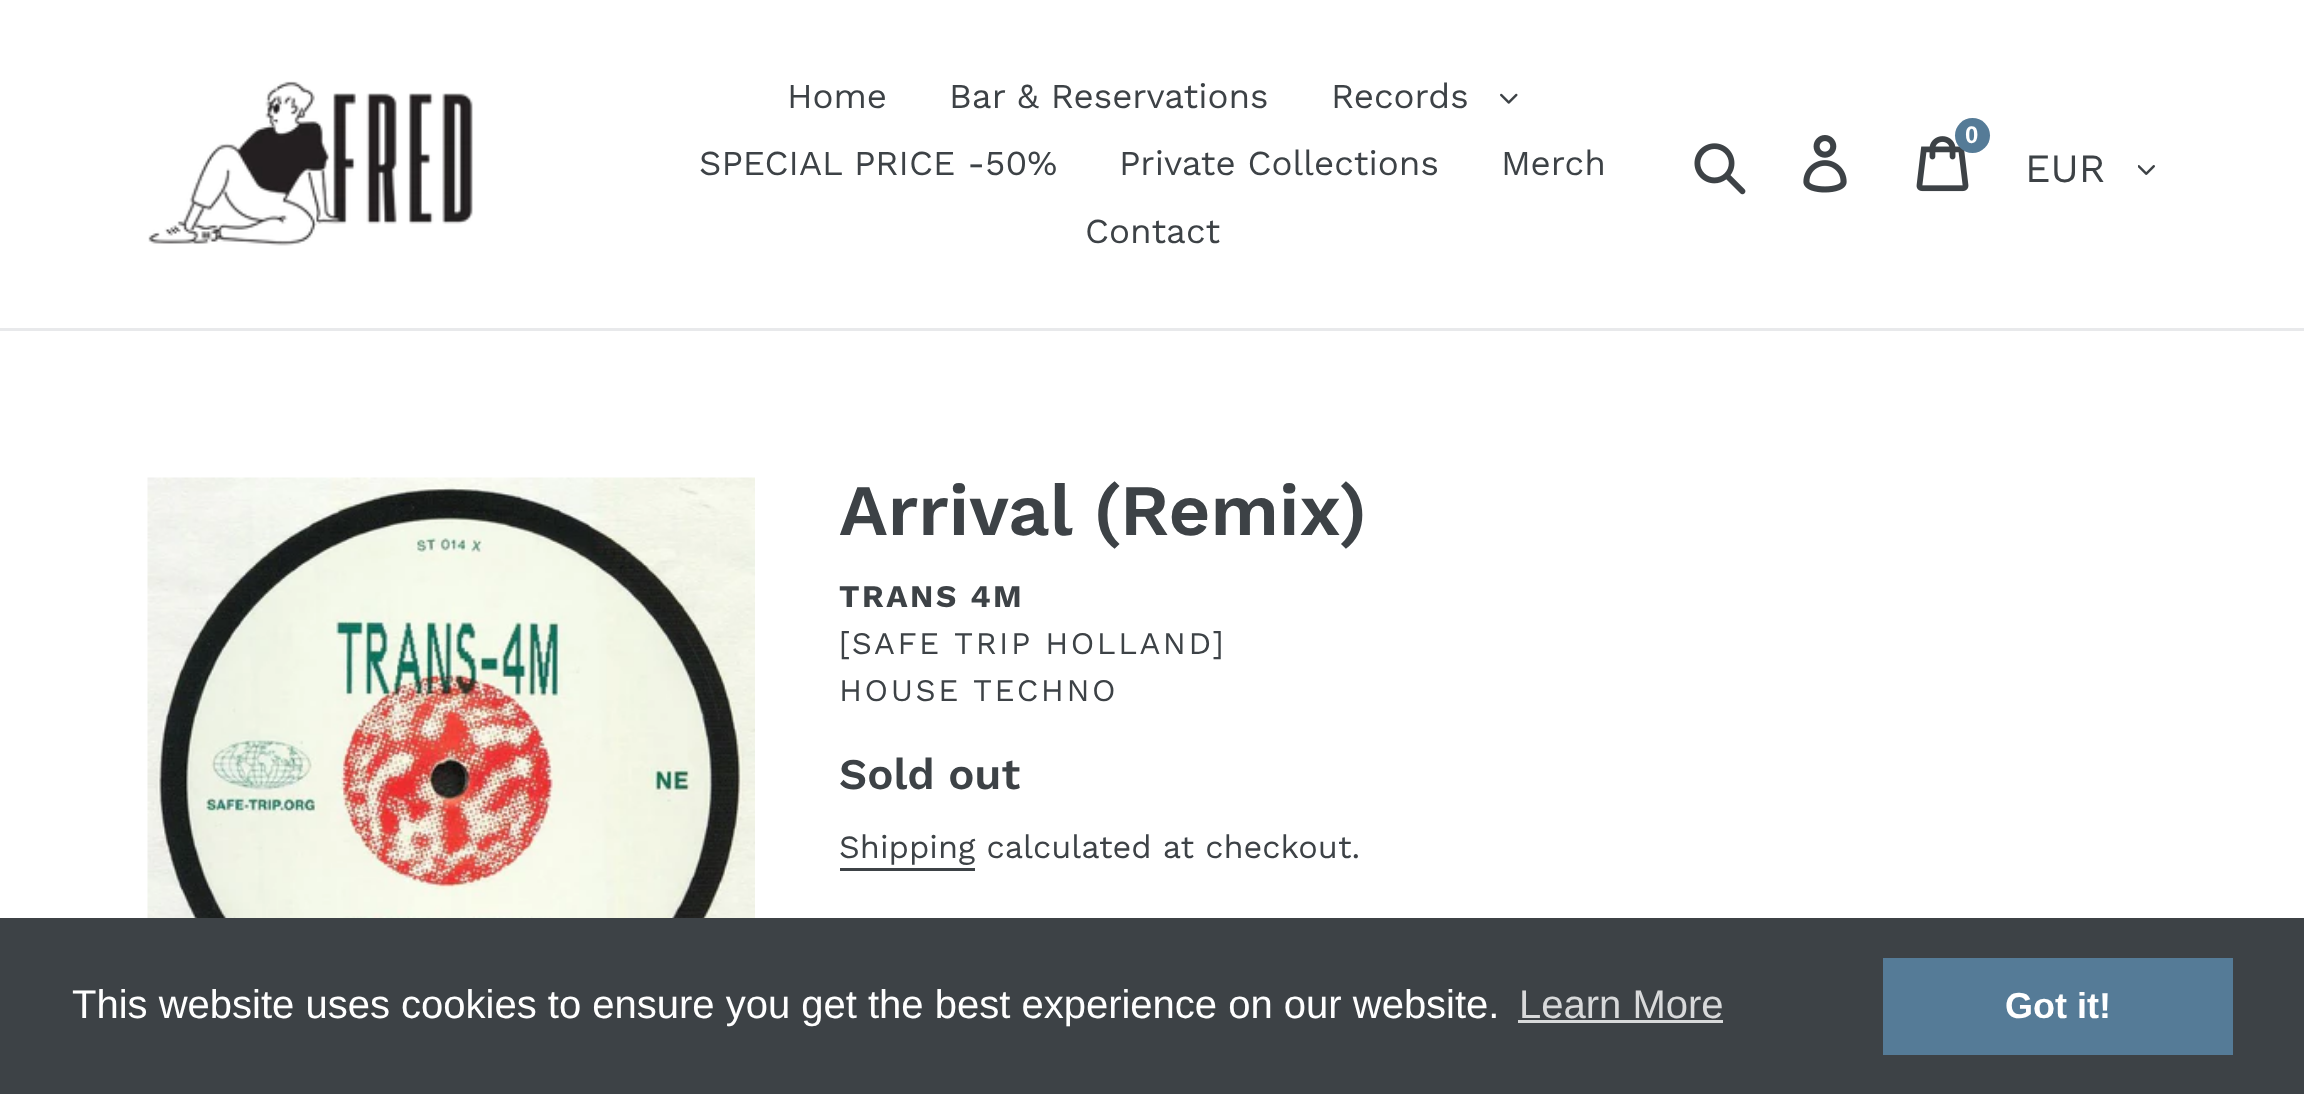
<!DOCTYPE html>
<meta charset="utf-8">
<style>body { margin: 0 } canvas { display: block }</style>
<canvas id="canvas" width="2304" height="1094"></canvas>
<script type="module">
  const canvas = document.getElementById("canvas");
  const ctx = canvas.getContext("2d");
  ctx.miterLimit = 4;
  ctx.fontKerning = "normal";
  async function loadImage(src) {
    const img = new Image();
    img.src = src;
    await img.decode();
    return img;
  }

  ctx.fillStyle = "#ffffff";
  ctx.fillRect(0, 0, 2304, 1094);
  ctx.fillStyle = "#e8e9eb";
  ctx.fillRect(0, 328, 2304, 3);
  ctx.drawImage(await loadImage("img1.png"), 148, 81, 325, 165);
  ctx.font = "35px Work Sans";
  ctx.fillStyle = "#3d4246";
  ctx.fillText("Home", 787, 108);
  ctx.fillText("Bar & Reservations", 949, 108);
  ctx.fillText("Records", 1331, 108);
  ctx.drawImage(await loadImage("img2.png"), 1500, 93, 18, 11);
  ctx.fillText("SPECIAL PRICE -50%", 699, 175);
  ctx.fillText("Private Collections", 1119, 175);
  ctx.fillText("Merch", 1501, 175);
  ctx.fillText("Contact", 1085, 243);
  ctx.drawImage(await loadImage("img3.png"), 1694, 143, 52, 52);
  ctx.drawImage(await loadImage("img4.png"), 1803, 135, 44, 58);
  ctx.drawImage(await loadImage("img5.png"), 1916, 136, 53, 56);
  ctx.fillStyle = "#557b97";
  ctx.beginPath();
  ctx.arc(1972.5, 135.5, 17.5, 0, Math.PI * 2);
  ctx.fill();
  ctx.font = "bold 24px Liberation Sans";
  ctx.fillStyle = "#ffffff";
  ctx.fillText("0", 1965, 143);
  ctx.font = "40px Work Sans";
  ctx.fillStyle = "#3d4246";
  ctx.fillText("EUR", 2025, 182);
  ctx.drawImage(await loadImage("img6.png"), 2138, 165, 17, 10);
  ctx.drawImage(await loadImage("img7.png"), 147, 477, 608, 441);
  ctx.font = "600 72.5px Work Sans";
  ctx.fillText("Arrival (Remix)", 839, 535);
  ctx.letterSpacing = "2.5px";
  ctx.font = "bold 31.5px Work Sans";
  ctx.fillText("TRANS 4M", 839, 607);
  ctx.font = "31.5px Work Sans";
  ctx.fillText("[SAFE TRIP HOLLAND]", 839, 654);
  ctx.fillText("HOUSE", 839, 701);
  ctx.fillText("TECHNO", 973, 701);
  ctx.letterSpacing = "0px";
  ctx.font = "600 43.75px Work Sans";
  ctx.fillText("Sold out", 839, 789);
  ctx.font = "32.5px Work Sans";
  ctx.fillText("Shipping calculated at checkout.", 839, 858);
  ctx.fillRect(840, 868, 135, 3);
  ctx.fillRect(0, 918, 2304, 176);
  ctx.font = "40px Liberation Sans";
  ctx.fillStyle = "#ffffff";
  ctx.fillText("This website uses cookies to ensure you get the best experience on our website.", 72, 1018);
  ctx.fillStyle = "#d8d9da";
  ctx.fillText("Learn More", 1519, 1018);
  ctx.fillRect(1518, 1020, 205, 3);
  ctx.fillStyle = "#557b97";
  ctx.fillRect(1883, 958, 350, 97);
  ctx.font = "bold 36px Liberation Sans";
  ctx.fillStyle = "#ffffff";
  ctx.fillText("Got it!", 2005, 1018);
</script>
